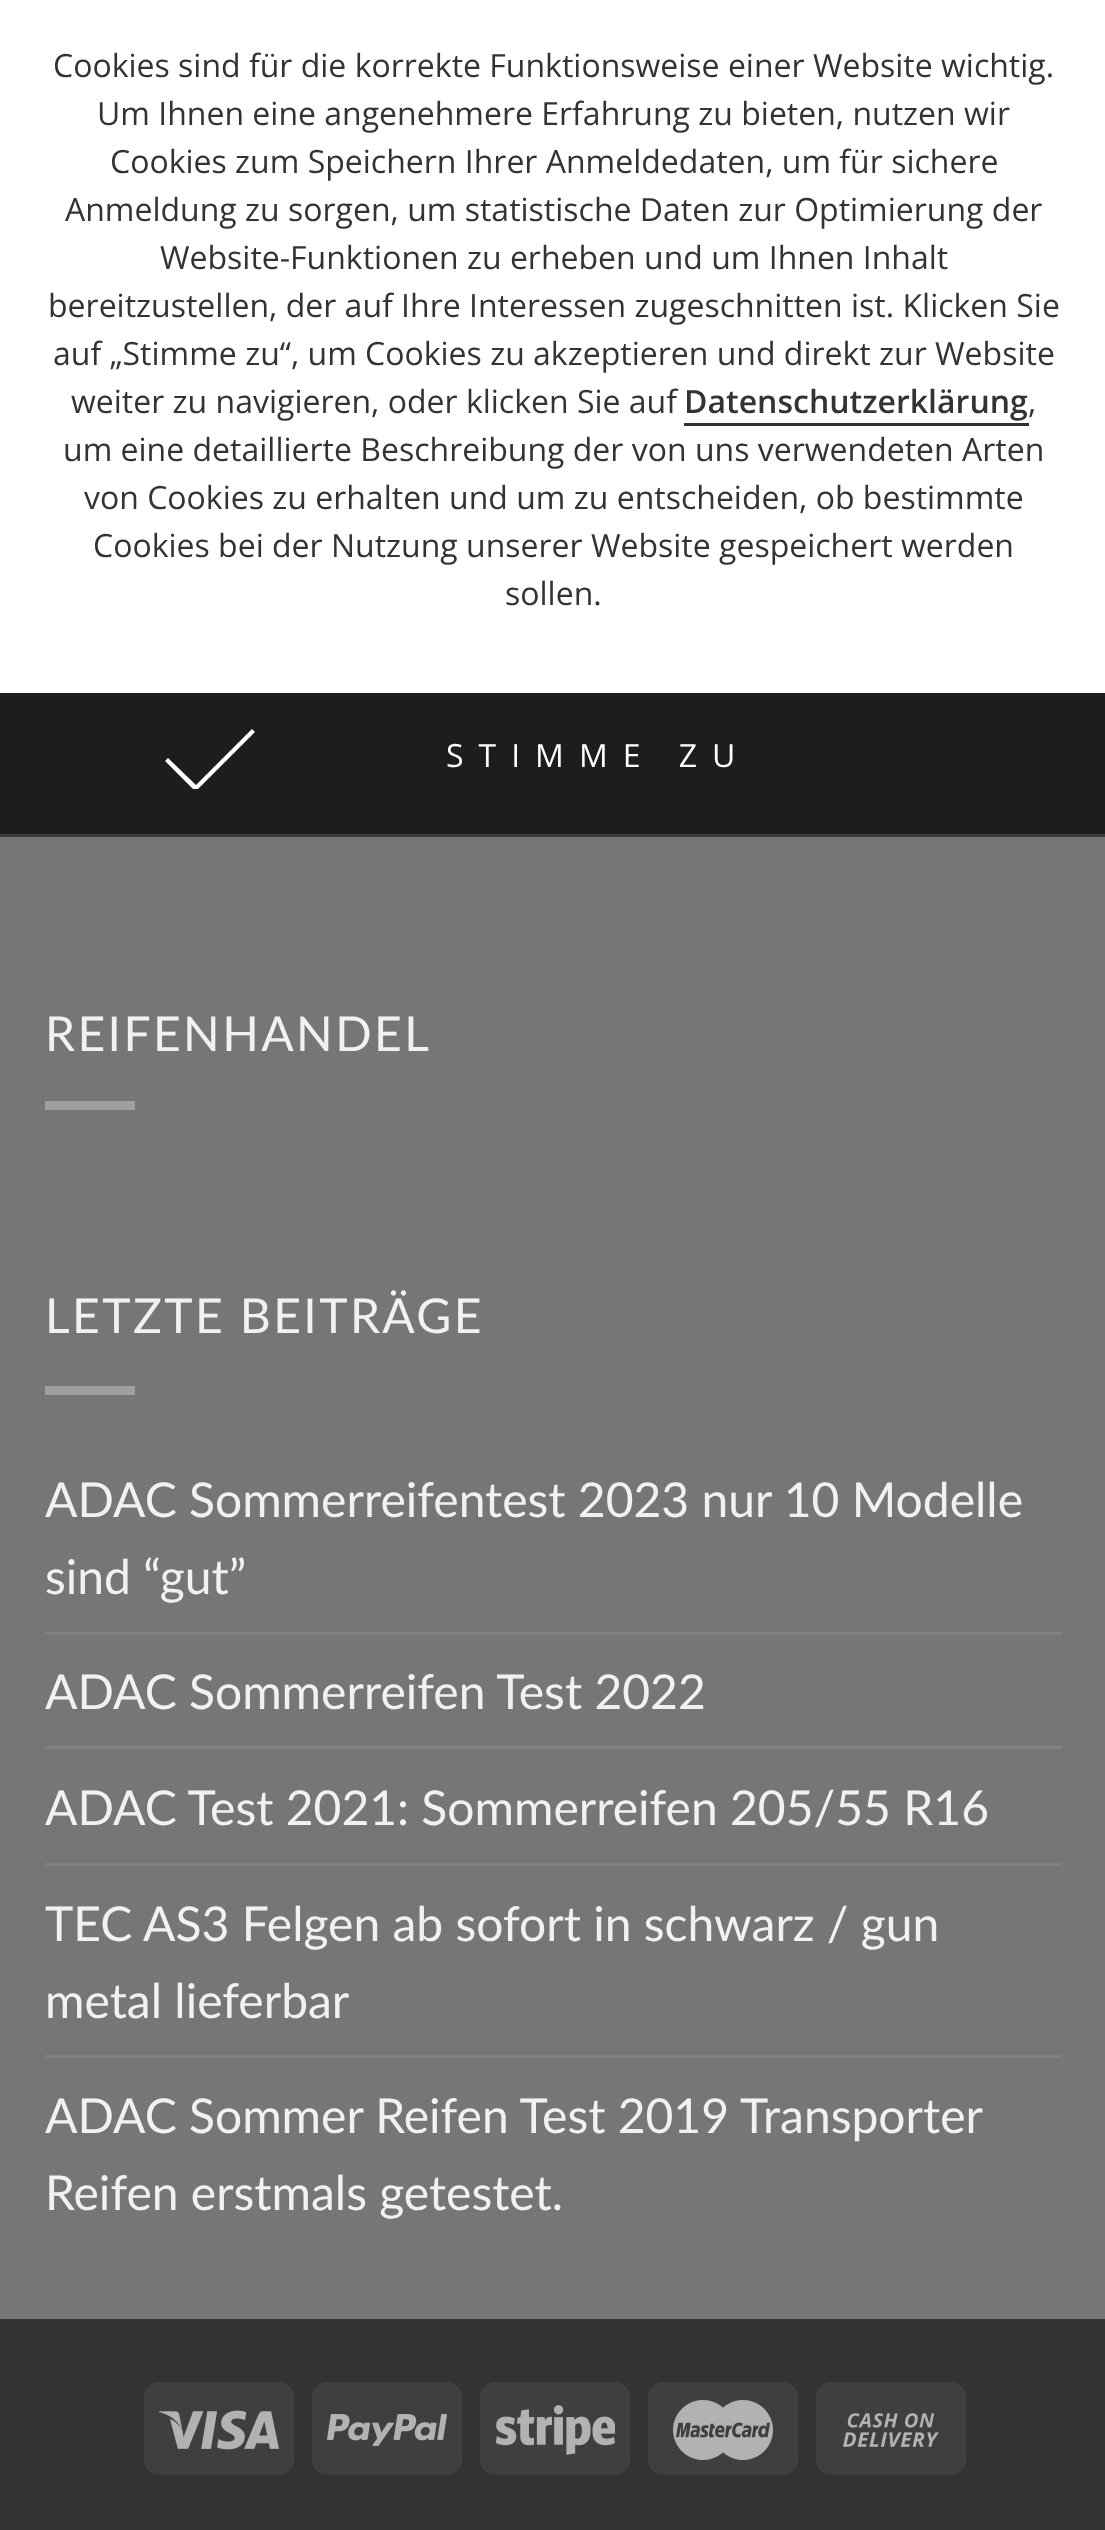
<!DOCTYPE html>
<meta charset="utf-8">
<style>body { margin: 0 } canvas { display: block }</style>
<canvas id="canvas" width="1105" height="2530"></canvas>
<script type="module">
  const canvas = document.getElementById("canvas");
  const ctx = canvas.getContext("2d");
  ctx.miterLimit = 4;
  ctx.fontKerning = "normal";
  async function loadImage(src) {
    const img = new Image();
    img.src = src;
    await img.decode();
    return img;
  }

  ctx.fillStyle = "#767676";
  ctx.fillRect(0, 0, 1105, 2530);
  ctx.fillStyle = "#ffffff";
  ctx.fillRect(0, 0, 1105, 693);
  ctx.fillStyle = "#3b3939";
  ctx.fillRect(0, 834, 1105, 3);
  ctx.font = "32px Open Sans";
  ctx.fillStyle = "#333333";
  ctx.fillText("Cookies sind für die korrekte Funktionsweise einer Website wichtig.", 53, 77);
  ctx.fillText("Um Ihnen eine angenehmere Erfahrung zu bieten, nutzen wir", 97, 125);
  ctx.fillText("Cookies zum Speichern Ihrer Anmeldedaten, um für sichere", 110, 173);
  ctx.fillText("Anmeldung zu sorgen, um statistische Daten zur Optimierung der", 65, 221);
  ctx.fillText("Website-Funktionen zu erheben und um Ihnen Inhalt", 160, 269);
  ctx.fillText("bereitzustellen, der auf Ihre Interessen zugeschnitten ist. Klicken Sie", 48, 317);
  ctx.fillText("auf „Stimme zu“, um Cookies zu akzeptieren und direkt zur Website", 53, 365);
  ctx.fillText("weiter zu navigieren, oder klicken Sie auf", 71, 413);
  ctx.font = "600 32px Open Sans";
  ctx.fillText("Datenschutzerklärung", 684, 413);
  ctx.fillRect(684, 423, 345, 3);
  ctx.font = "32px Open Sans";
  ctx.fillText(",", 1028, 413);
  ctx.fillText("um eine detaillierte Beschreibung der von uns verwendeten Arten", 63, 461);
  ctx.fillText("von Cookies zu erhalten und um zu entscheiden, ob bestimmte", 84, 509);
  ctx.fillText("Cookies bei der Nutzung unserer Website gespeichert werden", 93, 557);
  ctx.fillText("sollen.", 505, 605);
  ctx.fillStyle = "#1d1d1d";
  ctx.fillRect(0, 693, 1105, 141);
  ctx.save();
  ctx.beginPath();
  ctx.rect(165, 729, 90, 60);
  ctx.clip();
  ctx.fillStyle = "#ffffff";
  ctx.beginPath();
  ctx.moveTo(197, 790);
  ctx.lineTo(194, 790);
  ctx.lineTo(165, 761);
  ctx.lineTo(168, 758);
  ctx.lineTo(196, 785);
  ctx.lineTo(252, 729);
  ctx.lineTo(255, 732);
  ctx.closePath();
  ctx.fill();
  ctx.restore();
  ctx.letterSpacing = "15px";
  ctx.fillStyle = "#ffffff";
  ctx.fillText("STIMME ZU", 446, 767);
  ctx.letterSpacing = "2.4px";
  ctx.font = "48px Lato";
  ctx.fillStyle = "#f1f1f1";
  ctx.fillText("REIFENHANDEL", 45, 1051);
  ctx.fillStyle = "#9f9f9f";
  ctx.fillRect(45, 1101, 90, 9);
  ctx.fillStyle = "#f1f1f1";
  ctx.fillText("LETZTE BEITRÄGE", 45, 1333);
  ctx.fillStyle = "#9f9f9f";
  ctx.fillRect(45, 1386, 90, 9);
  ctx.letterSpacing = "0px";
  ctx.fillStyle = "#f1f1f1";
  ctx.fillText("ADAC Sommerreifentest 2023 nur 10 Modelle", 45, 1517);
  ctx.fillText("sind “gut”", 45, 1594);
  ctx.fillStyle = "#818181";
  ctx.fillRect(45, 1632, 1017, 3);
  ctx.fillStyle = "#f1f1f1";
  ctx.fillText("ADAC Sommerreifen Test 2022", 45, 1709);
  ctx.fillStyle = "#818181";
  ctx.fillRect(45, 1746, 1017, 3);
  ctx.fillStyle = "#f1f1f1";
  ctx.fillText("ADAC Test 2021: Sommerreifen 205/55 R16", 45, 1825);
  ctx.fillStyle = "#818181";
  ctx.fillRect(45, 1863, 1017, 3);
  ctx.fillStyle = "#f1f1f1";
  ctx.fillText("TEC AS3 Felgen ab sofort in schwarz / gun", 45, 1941);
  ctx.fillText("metal lieferbar", 45, 2018);
  ctx.fillStyle = "#818181";
  ctx.fillRect(45, 2055, 1017, 3);
  ctx.fillStyle = "#f1f1f1";
  ctx.fillText("ADAC Sommer Reifen Test 2019 Transporter", 45, 2133);
  ctx.fillText("Reifen erstmals getestet.", 45, 2210);
  ctx.fillStyle = "#333333";
  ctx.fillRect(0, 2319, 1105, 211);
  ctx.fillStyle = "#3f3f3f";
  ctx.beginPath();
  ctx.roundRect(144, 2382, 150, 93, 15);
  ctx.fill();
  ctx.drawImage(await loadImage("img1.png"), 159, 2410, 120, 40);
  ctx.beginPath();
  ctx.roundRect(312, 2382, 150, 93, 15);
  ctx.fill();
  ctx.drawImage(await loadImage("img2.png"), 327, 2414, 120, 32);
  ctx.beginPath();
  ctx.roundRect(480, 2382, 150, 93, 15);
  ctx.fill();
  ctx.drawImage(await loadImage("img3.png"), 495, 2405, 120, 50);
  ctx.beginPath();
  ctx.roundRect(648, 2382, 150, 93, 15);
  ctx.fill();
  ctx.drawImage(await loadImage("img4.png"), 673, 2400, 100, 60);
  ctx.beginPath();
  ctx.roundRect(816, 2382, 150, 93, 15);
  ctx.fill();
  ctx.drawImage(await loadImage("img5.png"), 843, 2413, 96, 34);
</script>
